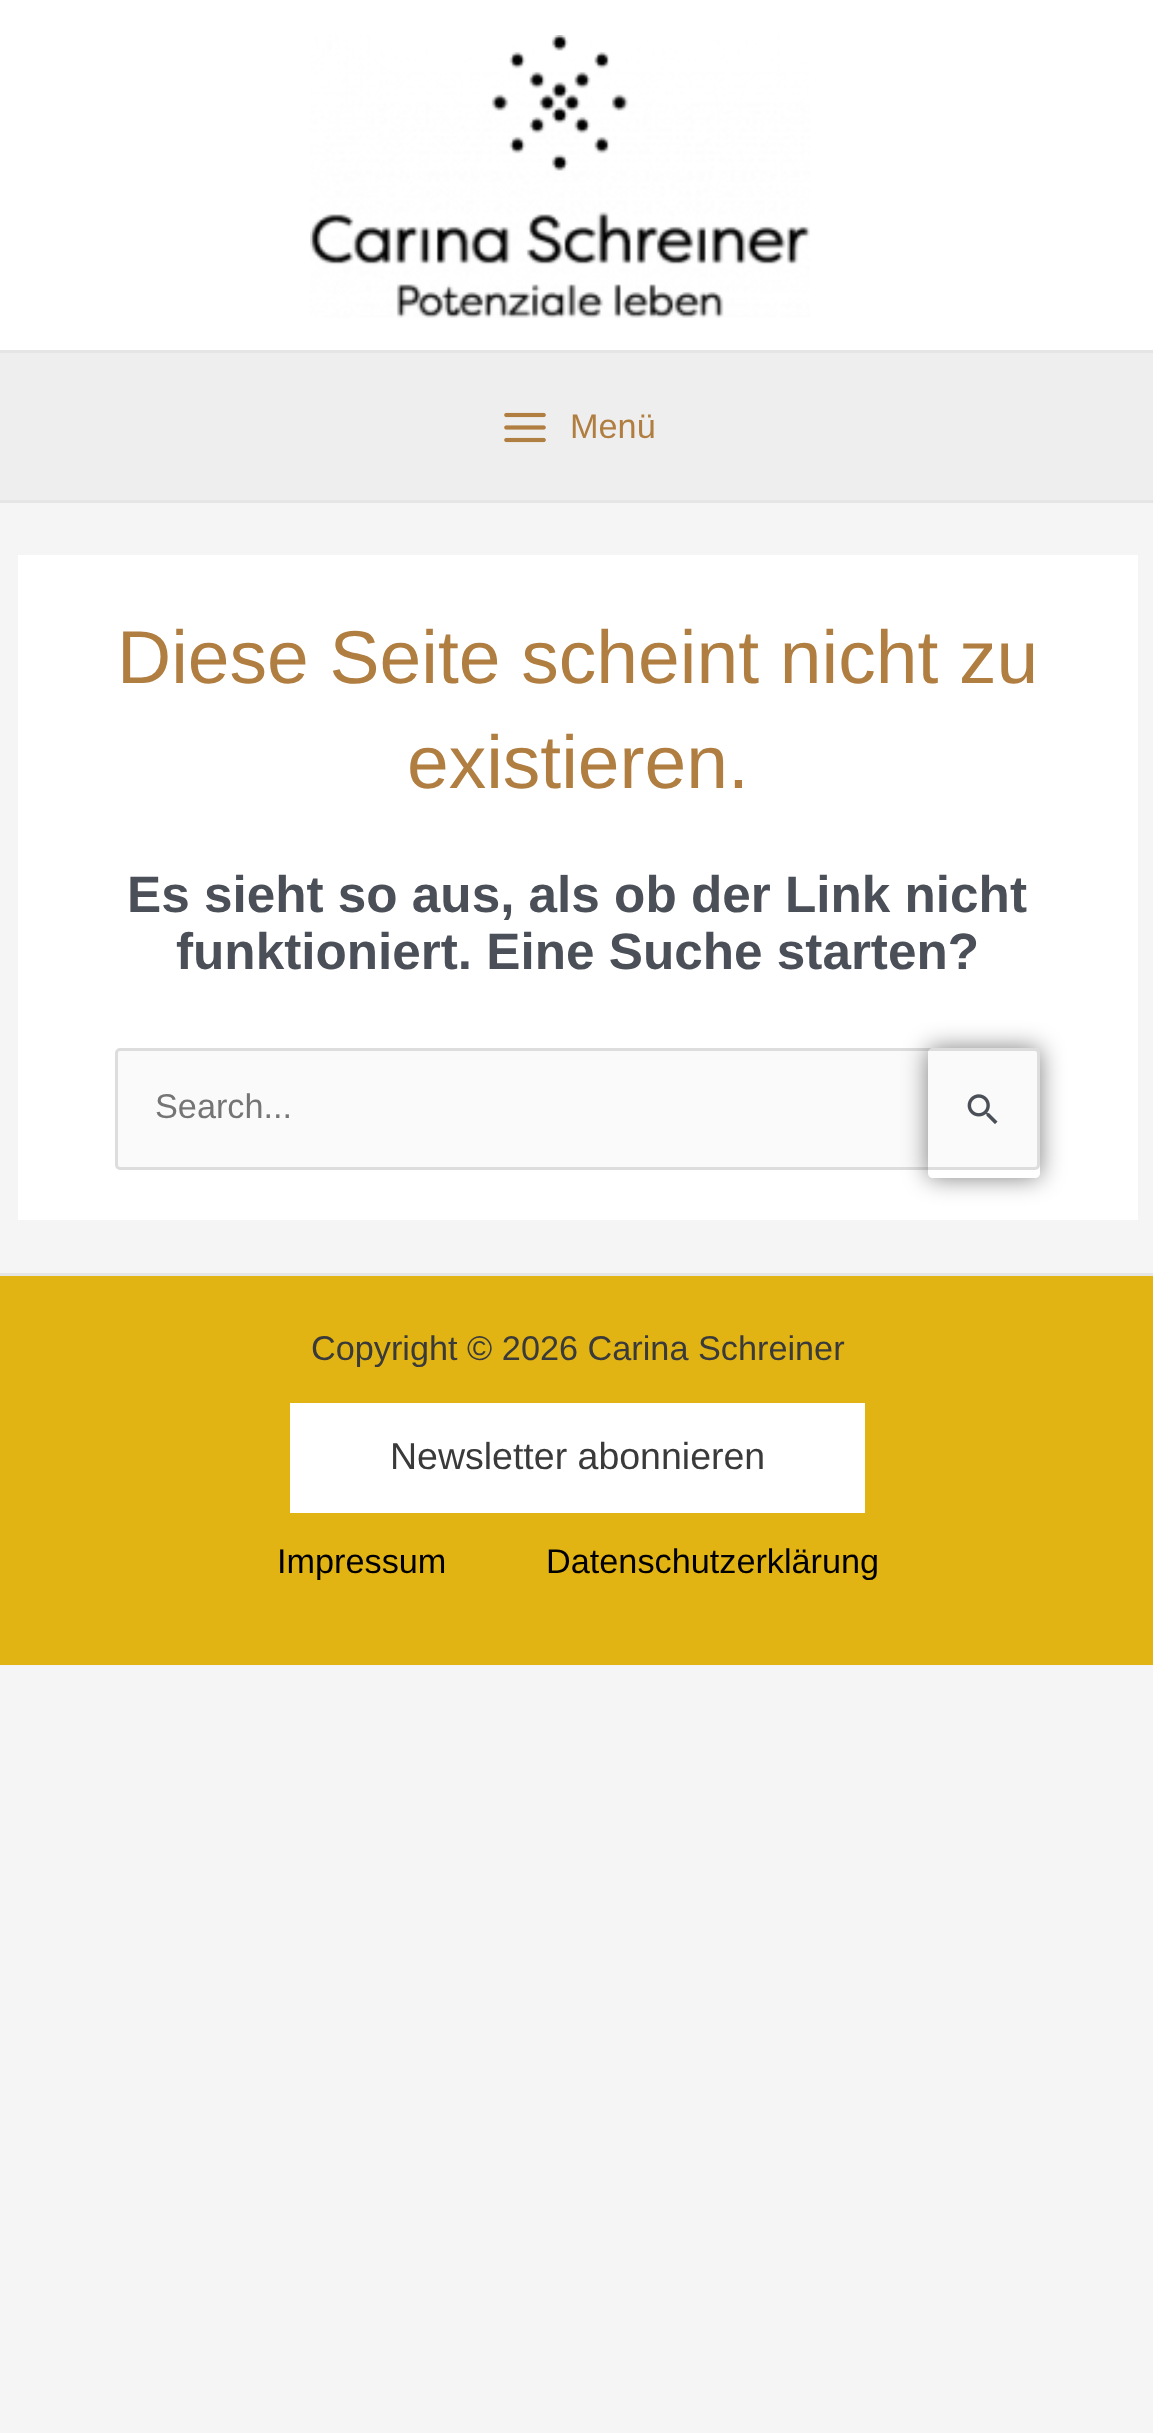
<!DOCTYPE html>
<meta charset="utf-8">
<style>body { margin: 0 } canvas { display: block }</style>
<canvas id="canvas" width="1153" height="2433"></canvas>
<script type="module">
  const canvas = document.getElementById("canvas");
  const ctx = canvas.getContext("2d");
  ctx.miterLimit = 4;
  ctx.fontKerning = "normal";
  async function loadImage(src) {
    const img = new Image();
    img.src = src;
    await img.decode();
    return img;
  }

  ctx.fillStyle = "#f5f5f5";
  ctx.fillRect(0, 0, 1153, 2433);
  ctx.fillStyle = "#ffffff";
  ctx.fillRect(0, 0, 1153, 350);
  ctx.fillStyle = "#e5e5e5";
  ctx.fillRect(0, 350, 1153, 3);
  ctx.drawImage(await loadImage("img1.png"), 310, 35, 500, 283);
  ctx.fillStyle = "#eeeeee";
  ctx.fillRect(0, 353, 1153, 147);
  ctx.fillStyle = "#e5e5e5";
  ctx.fillRect(0, 500, 1153, 3);
  ctx.drawImage(await loadImage("img2.png"), 504, 412, 42, 31);
  ctx.font = "34.25px Liberation Sans";
  ctx.fillStyle = "#b17e41";
  ctx.fillText("Menü", 570, 438);
  ctx.fillStyle = "#ffffff";
  ctx.fillRect(18, 555, 1120, 665);
  ctx.font = "75px Liberation Sans";
  ctx.fillStyle = "#b17e41";
  ctx.fillText("Diese Seite scheint nicht zu", 117, 683);
  ctx.fillText("existieren.", 407, 788);
  ctx.font = "bold 51.25px Liberation Sans";
  ctx.fillStyle = "#4b4f58";
  ctx.fillText("Es sieht so aus, als ob der Link nicht", 127, 912);
  ctx.fillText("funktioniert. Eine Suche starten?", 176, 969);
  ctx.fillStyle = "#fafafa";
  ctx.beginPath();
  ctx.roundRect(116.5, 1049.5, 922, 119, 3.5);
  ctx.fill();
  ctx.strokeStyle = "#dddddd";
  ctx.lineWidth = 3;
  ctx.stroke();
  ctx.font = "34.25px Liberation Sans";
  ctx.fillStyle = "#757575";
  ctx.fillText("Search...", 155, 1118);
  ctx.drawImage(await loadImage("img3.png"), 967, 1094, 31, 30);
  ctx.save();
  ctx.beginPath();
  ctx.moveTo(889, 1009);
  ctx.lineTo(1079, 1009);
  ctx.lineTo(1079, 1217);
  ctx.lineTo(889, 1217);
  ctx.closePath();
  ctx.moveTo(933, 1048);
  ctx.lineTo(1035, 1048);
  ctx.bezierCurveTo(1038, 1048, 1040, 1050, 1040, 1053);
  ctx.lineTo(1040, 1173);
  ctx.bezierCurveTo(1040, 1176, 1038, 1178, 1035, 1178);
  ctx.lineTo(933, 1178);
  ctx.bezierCurveTo(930, 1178, 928, 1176, 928, 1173);
  ctx.lineTo(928, 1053);
  ctx.bezierCurveTo(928, 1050, 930, 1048, 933, 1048);
  ctx.closePath();
  ctx.clip("evenodd");
  ctx.fillStyle = "rgba(0, 0, 0, 0.5)";
  ctx.filter = "blur(12.5px)";
  ctx.beginPath();
  ctx.roundRect(928, 1048, 112, 130, 5);
  ctx.fill();
  ctx.filter = "none";
  ctx.restore();
  ctx.fillStyle = "#e2b413";
  ctx.fillRect(0, 1276, 1153, 389);
  ctx.fillStyle = "#e5e5e5";
  ctx.fillRect(0, 1273, 1153, 3);
  ctx.fillStyle = "#3a3a3a";
  ctx.fillText("Copyright © 2026 Carina Schreiner", 311, 1360);
  ctx.fillStyle = "#ffffff";
  ctx.fillRect(290, 1403, 575, 110);
  ctx.font = "37.5px Liberation Sans";
  ctx.fillStyle = "#3a3a3a";
  ctx.fillText("Newsletter abonnieren", 390, 1469);
  ctx.font = "34.25px Liberation Sans";
  ctx.fillStyle = "#000000";
  ctx.fillText("Impressum", 277, 1573);
  ctx.fillText("Datenschutzerklärung", 546, 1573);
</script>
